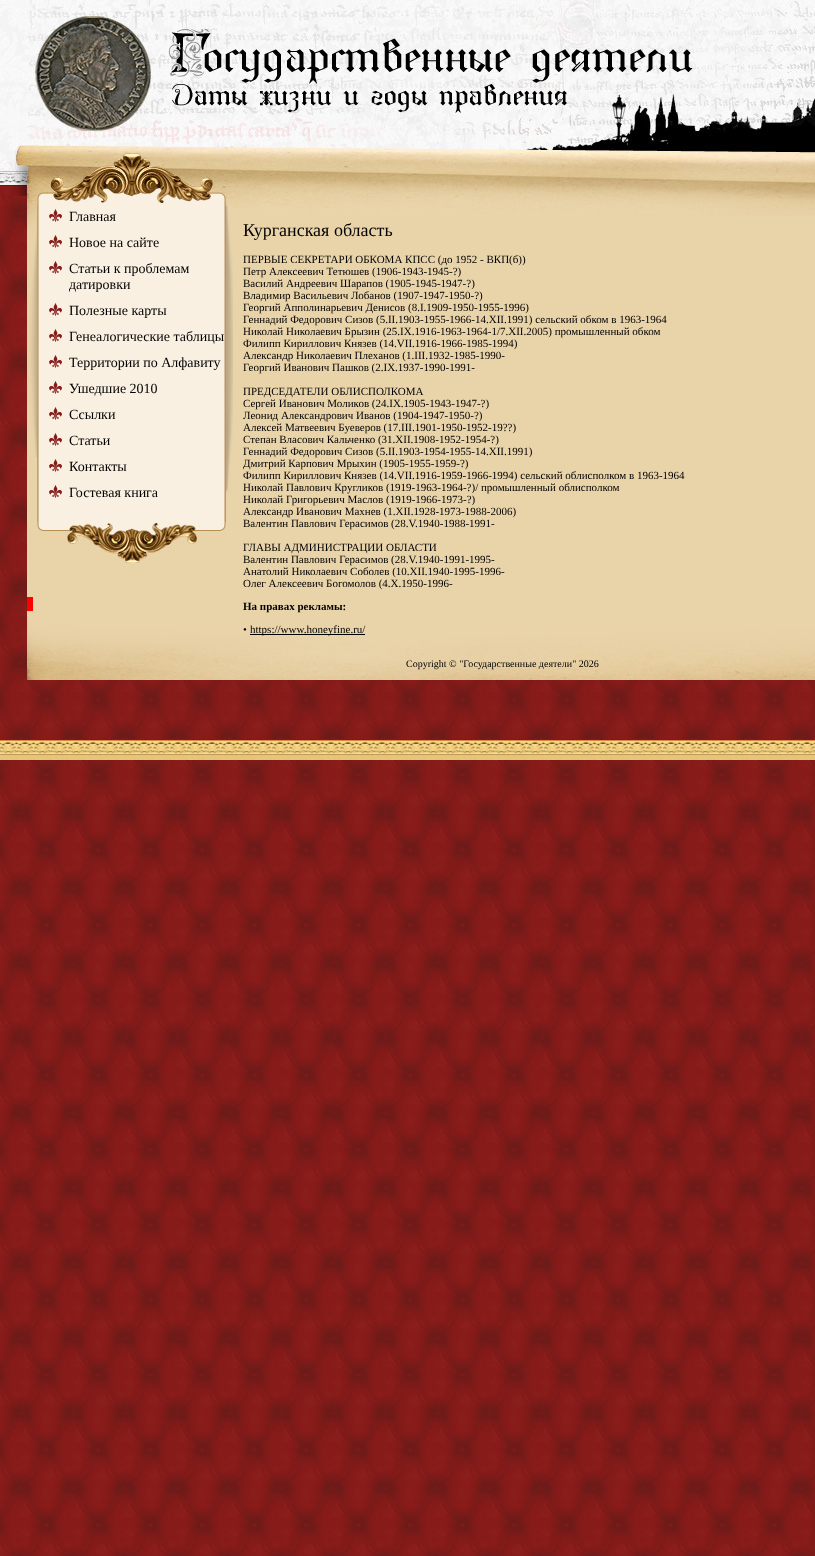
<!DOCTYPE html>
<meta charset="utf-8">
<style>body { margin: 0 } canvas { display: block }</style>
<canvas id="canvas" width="815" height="1556"></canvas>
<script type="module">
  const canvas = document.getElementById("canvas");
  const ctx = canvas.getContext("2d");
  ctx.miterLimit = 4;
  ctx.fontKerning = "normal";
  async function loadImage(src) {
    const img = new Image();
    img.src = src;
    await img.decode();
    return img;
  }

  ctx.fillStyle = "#ffffff";
  ctx.fillRect(0, 0, 815, 1556);
  ctx.drawImage(await loadImage("img1.png"), 0, 196, 815, 1360);
  ctx.drawImage(await loadImage("img2.png"), 0, 0, 815, 196);
  ctx.fillStyle = "#e9d3a9";
  ctx.fillRect(27, 216, 788, 400);
  ctx.drawImage(await loadImage("img3.png"), 233, 196, 582, 20);
  ctx.drawImage(await loadImage("img4.png"), 27, 616, 788, 64);
  ctx.drawImage(await loadImage("img5.png"), 27, 196, 206, 10);
  ctx.drawImage(await loadImage("img6.png"), 27, 206, 10, 251);
  ctx.drawImage(await loadImage("img7.png"), 37, 206, 189, 316);
  ctx.drawImage(await loadImage("img8.png"), 49, 209, 13, 13);
  ctx.font = "14px Liberation Serif";
  ctx.fillStyle = "#000000";
  ctx.fillText("Главная", 69, 221);
  ctx.drawImage(await loadImage("img8.png"), 49, 235, 13, 13);
  ctx.fillText("Новое на сайте", 69, 247);
  ctx.drawImage(await loadImage("img8.png"), 49, 261, 13, 13);
  ctx.fillText("Статьи к проблемам", 69, 273);
  ctx.fillText("датировки", 69, 289);
  ctx.drawImage(await loadImage("img8.png"), 49, 303, 13, 13);
  ctx.fillText("Полезные карты", 69, 315);
  ctx.drawImage(await loadImage("img8.png"), 49, 329, 13, 13);
  ctx.fillText("Генеалогические таблицы", 69, 341);
  ctx.drawImage(await loadImage("img8.png"), 49, 355, 13, 13);
  ctx.fillText("Территории по Алфавиту", 69, 367);
  ctx.drawImage(await loadImage("img8.png"), 49, 381, 13, 13);
  ctx.fillText("Ушедшие 2010", 69, 393);
  ctx.drawImage(await loadImage("img8.png"), 49, 407, 13, 13);
  ctx.fillText("Ссылки", 69, 419);
  ctx.drawImage(await loadImage("img8.png"), 49, 433, 13, 13);
  ctx.fillText("Статьи", 69, 445);
  ctx.drawImage(await loadImage("img8.png"), 49, 459, 13, 13);
  ctx.fillText("Контакты", 69, 471);
  ctx.drawImage(await loadImage("img8.png"), 49, 485, 13, 13);
  ctx.fillText("Гостевая книга", 69, 497);
  ctx.drawImage(await loadImage("img9.png"), 226, 206, 7, 287);
  ctx.drawImage(await loadImage("img10.png"), 35, 522, 192, 42);
  ctx.fillStyle = "#ff0000";
  ctx.fillRect(27, 597, 6, 14);
  ctx.font = "18px Liberation Serif";
  ctx.fillStyle = "#000000";
  ctx.fillText("Курганская область", 243, 236);
  ctx.font = "11px Liberation Serif";
  ctx.fillText("ПЕРВЫЕ СЕКРЕТАРИ ОБКОМА КПСС (до 1952 - ВКП(б))", 243, 263);
  ctx.fillText("Петр Алексеевич Тетюшев (1906-1943-1945-?)", 243, 275);
  ctx.fillText("Василий Андреевич Шарапов (1905-1945-1947-?)", 243, 287);
  ctx.fillText("Владимир Васильевич Лобанов (1907-1947-1950-?)", 243, 299);
  ctx.fillText("Георгий Апполинарьевич Денисов (8.I.1909-1950-1955-1996)", 243, 311);
  ctx.fillText("Геннадий Федорович Сизов (5.II.1903-1955-1966-14.XII.1991) сельский обком в 1963-1964", 243, 323);
  ctx.fillText("Николай Николаевич Брызин (25.IX.1916-1963-1964-1/7.XII.2005) промышленный обком", 243, 335);
  ctx.fillText("Филипп Кириллович Князев (14.VII.1916-1966-1985-1994)", 243, 347);
  ctx.fillText("Александр Николаевич Плеханов (1.III.1932-1985-1990-", 243, 359);
  ctx.fillText("Георгий Иванович Пашков (2.IX.1937-1990-1991-", 243, 371);
  ctx.fillText("ПРЕДСЕДАТЕЛИ ОБЛИСПОЛКОМА", 243, 395);
  ctx.fillText("Сергей Иванович Моликов (24.IX.1905-1943-1947-?)", 243, 407);
  ctx.fillText("Леонид Александрович Иванов (1904-1947-1950-?)", 243, 419);
  ctx.fillText("Алексей Матвеевич Буеверов (17.III.1901-1950-1952-19??)", 243, 431);
  ctx.fillText("Степан Власович Кальченко (31.XII.1908-1952-1954-?)", 243, 443);
  ctx.fillText("Геннадий Федорович Сизов (5.II.1903-1954-1955-14.XII.1991)", 243, 455);
  ctx.fillText("Дмитрий Карпович Мрыхин (1905-1955-1959-?)", 243, 467);
  ctx.fillText("Филипп Кириллович Князев (14.VII.1916-1959-1966-1994) сельский облисполком в 1963-1964", 243, 479);
  ctx.fillText("Николай Павлович Кругликов (1919-1963-1964-?)/ промышленный облисполком", 243, 491);
  ctx.fillText("Николай Григорьевич Маслов (1919-1966-1973-?)", 243, 503);
  ctx.fillText("Александр Иванович Махнев (1.XII.1928-1973-1988-2006)", 243, 515);
  ctx.fillText("Валентин Павлович Герасимов (28.V.1940-1988-1991-", 243, 527);
  ctx.fillText("ГЛАВЫ АДМИНИСТРАЦИИ ОБЛАСТИ", 243, 551);
  ctx.fillText("Валентин Павлович Герасимов (28.V.1940-1991-1995-", 243, 563);
  ctx.fillText("Анатолий Николаевич Соболев (10.XII.1940-1995-1996-", 243, 575);
  ctx.fillText("Олег Алексеевич Богомолов (4.X.1950-1996-", 243, 587);
  ctx.font = "bold 11px Liberation Serif";
  ctx.fillText("На правах рекламы:", 243, 610);
  ctx.font = "11px Liberation Serif";
  ctx.fillText("•", 243, 633);
  ctx.fillRect(250, 634, 115, 1);
  ctx.fillText("https://www.honeyfine.ru/", 250, 633);
  ctx.font = "10px Liberation Serif";
  ctx.fillText("Copyright © \"Государственные деятели\" 2026", 406, 667);
  ctx.drawImage(await loadImage("img11.png"), 0, 739, 815, 21);
</script>
